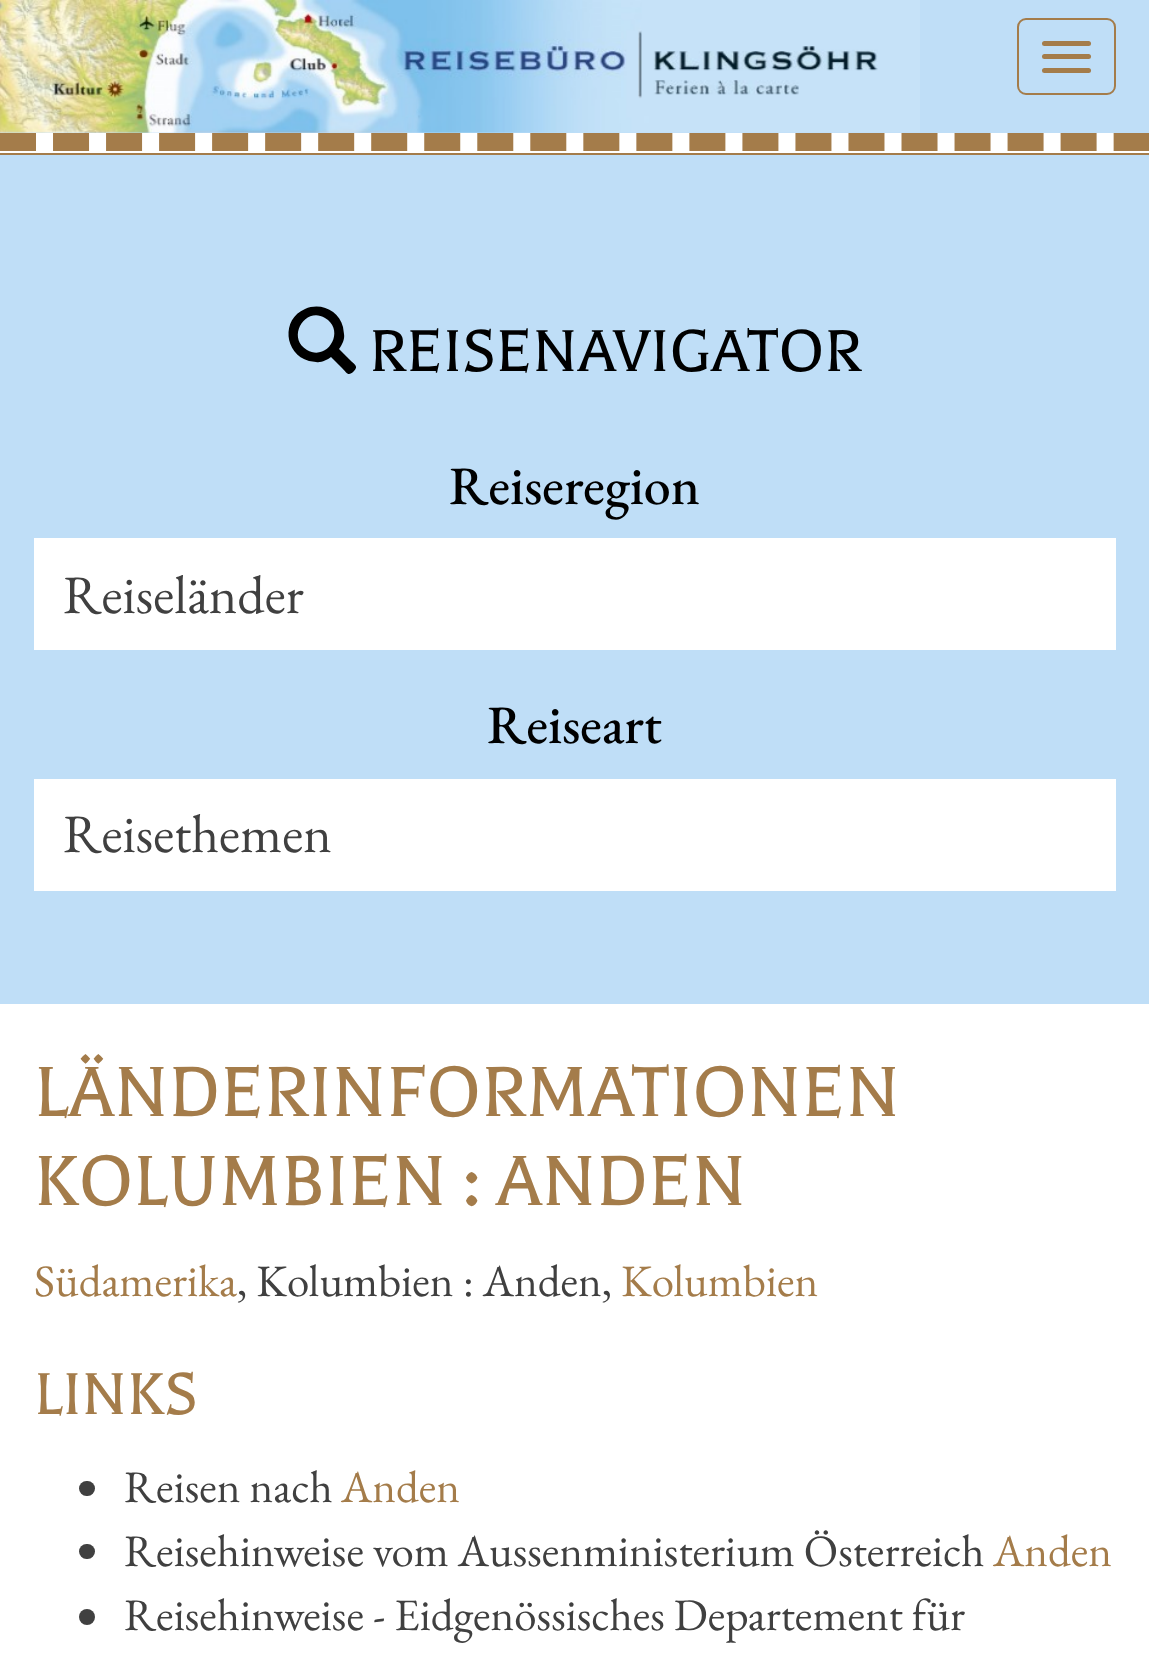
<!DOCTYPE html>
<meta charset="utf-8">
<style>body { margin: 0 } canvas { display: block }</style>
<canvas id="canvas" width="1149" height="1675"></canvas>
<script type="module">
  const canvas = document.getElementById("canvas");
  const ctx = canvas.getContext("2d");
  ctx.miterLimit = 4;
  ctx.fontKerning = "normal";
  async function loadImage(src) {
    const img = new Image();
    img.src = src;
    await img.decode();
    return img;
  }

  ctx.fillStyle = "#ffffff";
  ctx.fillRect(0, 0, 1149, 1675);
  ctx.fillStyle = "#a47c4a";
  ctx.fillRect(0, 153, 1149, 2);
  ctx.beginPath();
  ctx.moveTo(0, 142);
  ctx.lineTo(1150, 142);
  ctx.strokeStyle = "#a47c4a";
  ctx.lineWidth = 18;
  ctx.setLineDash([36, 17.03]);
  ctx.stroke();
  ctx.fillStyle = "#bfdef7";
  ctx.fillRect(0, 0, 1149, 133);
  ctx.drawImage(await loadImage("img1.png"), 0, 0, 920, 133);
  ctx.beginPath();
  ctx.roundRect(1018, 19, 97, 75, 8);
  ctx.lineWidth = 2;
  ctx.setLineDash([]);
  ctx.stroke();
  ctx.fillStyle = "#a47c4a";
  ctx.beginPath();
  ctx.roundRect(1042, 41, 49, 5, 2.5);
  ctx.fill();
  ctx.beginPath();
  ctx.roundRect(1042, 54, 49, 5, 2.5);
  ctx.fill();
  ctx.beginPath();
  ctx.roundRect(1042, 68, 49, 5, 2.5);
  ctx.fill();
  ctx.fillStyle = "#bfdef7";
  ctx.fillRect(0, 155, 1149, 849);
  ctx.fillStyle = "#000000";
  ctx.beginPath();
  ctx.moveTo(305, 309);
  ctx.bezierCurveTo(321, 302, 339, 311, 343, 327);
  ctx.lineTo(344, 334);
  ctx.bezierCurveTo(345, 339, 342, 345, 339, 349);
  ctx.lineTo(350, 360);
  ctx.bezierCurveTo(354, 364, 359, 366, 354, 371);
  ctx.bezierCurveTo(348, 377, 347, 373, 342, 368);
  ctx.lineTo(331, 357);
  ctx.bezierCurveTo(327, 360, 321, 363, 316, 362);
  ctx.lineTo(309, 361);
  ctx.bezierCurveTo(284, 354, 281, 319, 305, 309);
  ctx.closePath();
  ctx.moveTo(325, 318);
  ctx.bezierCurveTo(305, 306, 286, 338, 307, 350);
  ctx.bezierCurveTo(328, 362, 346, 330, 325, 318);
  ctx.closePath();
  ctx.fill();
  ctx.font = "67.5px Balthazar";
  ctx.fillText("REISENAVIGATOR", 369, 371);
  ctx.font = "500 54px EB Garamond";
  ctx.fillText("Reiseregion", 449, 504);
  ctx.fillStyle = "#ffffff";
  ctx.fillRect(34, 538, 1082, 112);
  ctx.font = "54px EB Garamond";
  ctx.fillStyle = "#404040";
  ctx.fillText("Reiseländer", 63, 613);
  ctx.font = "500 54px EB Garamond";
  ctx.fillStyle = "#000000";
  ctx.fillText("Reiseart", 487, 743);
  ctx.fillStyle = "#ffffff";
  ctx.fillRect(34, 779, 1082, 112);
  ctx.font = "54px EB Garamond";
  ctx.fillStyle = "#404040";
  ctx.fillText("Reisethemen", 63, 852);
  ctx.font = "81px Balthazar";
  ctx.fillStyle = "#a47c4a";
  ctx.fillText("LÄNDERINFORMATIONEN", 34, 1116);
  ctx.fillText("KOLUMBIEN : ANDEN", 34, 1205);
  ctx.font = "45px EB Garamond";
  ctx.fillText("Südamerika", 34, 1296);
  ctx.fillStyle = "#404040";
  ctx.fillText(", Kolumbien : Anden,", 237, 1296);
  ctx.fillStyle = "#a47c4a";
  ctx.fillText("Kolumbien", 621, 1296);
  ctx.font = "67.5px Balthazar";
  ctx.fillText("LINKS", 34, 1414);
  ctx.fillStyle = "#404040";
  ctx.beginPath();
  ctx.roundRect(79, 1481, 16, 15, 7.5);
  ctx.fill();
  ctx.font = "45px EB Garamond";
  ctx.fillText("Reisen nach", 124, 1502);
  ctx.fillStyle = "#a47c4a";
  ctx.fillText("Anden", 341, 1502);
  ctx.fillStyle = "#404040";
  ctx.beginPath();
  ctx.roundRect(79, 1544, 16, 15, 7.5);
  ctx.fill();
  ctx.fillText("Reisehinweise vom Aussenministerium Österreich", 124, 1566);
  ctx.fillStyle = "#a47c4a";
  ctx.fillText("Anden", 993, 1566);
  ctx.fillStyle = "#404040";
  ctx.beginPath();
  ctx.arc(87, 1617, 8, 0, Math.PI * 2);
  ctx.fill();
  ctx.fillText("Reisehinweise - Eidgenössisches Departement für", 124, 1630);
</script>
